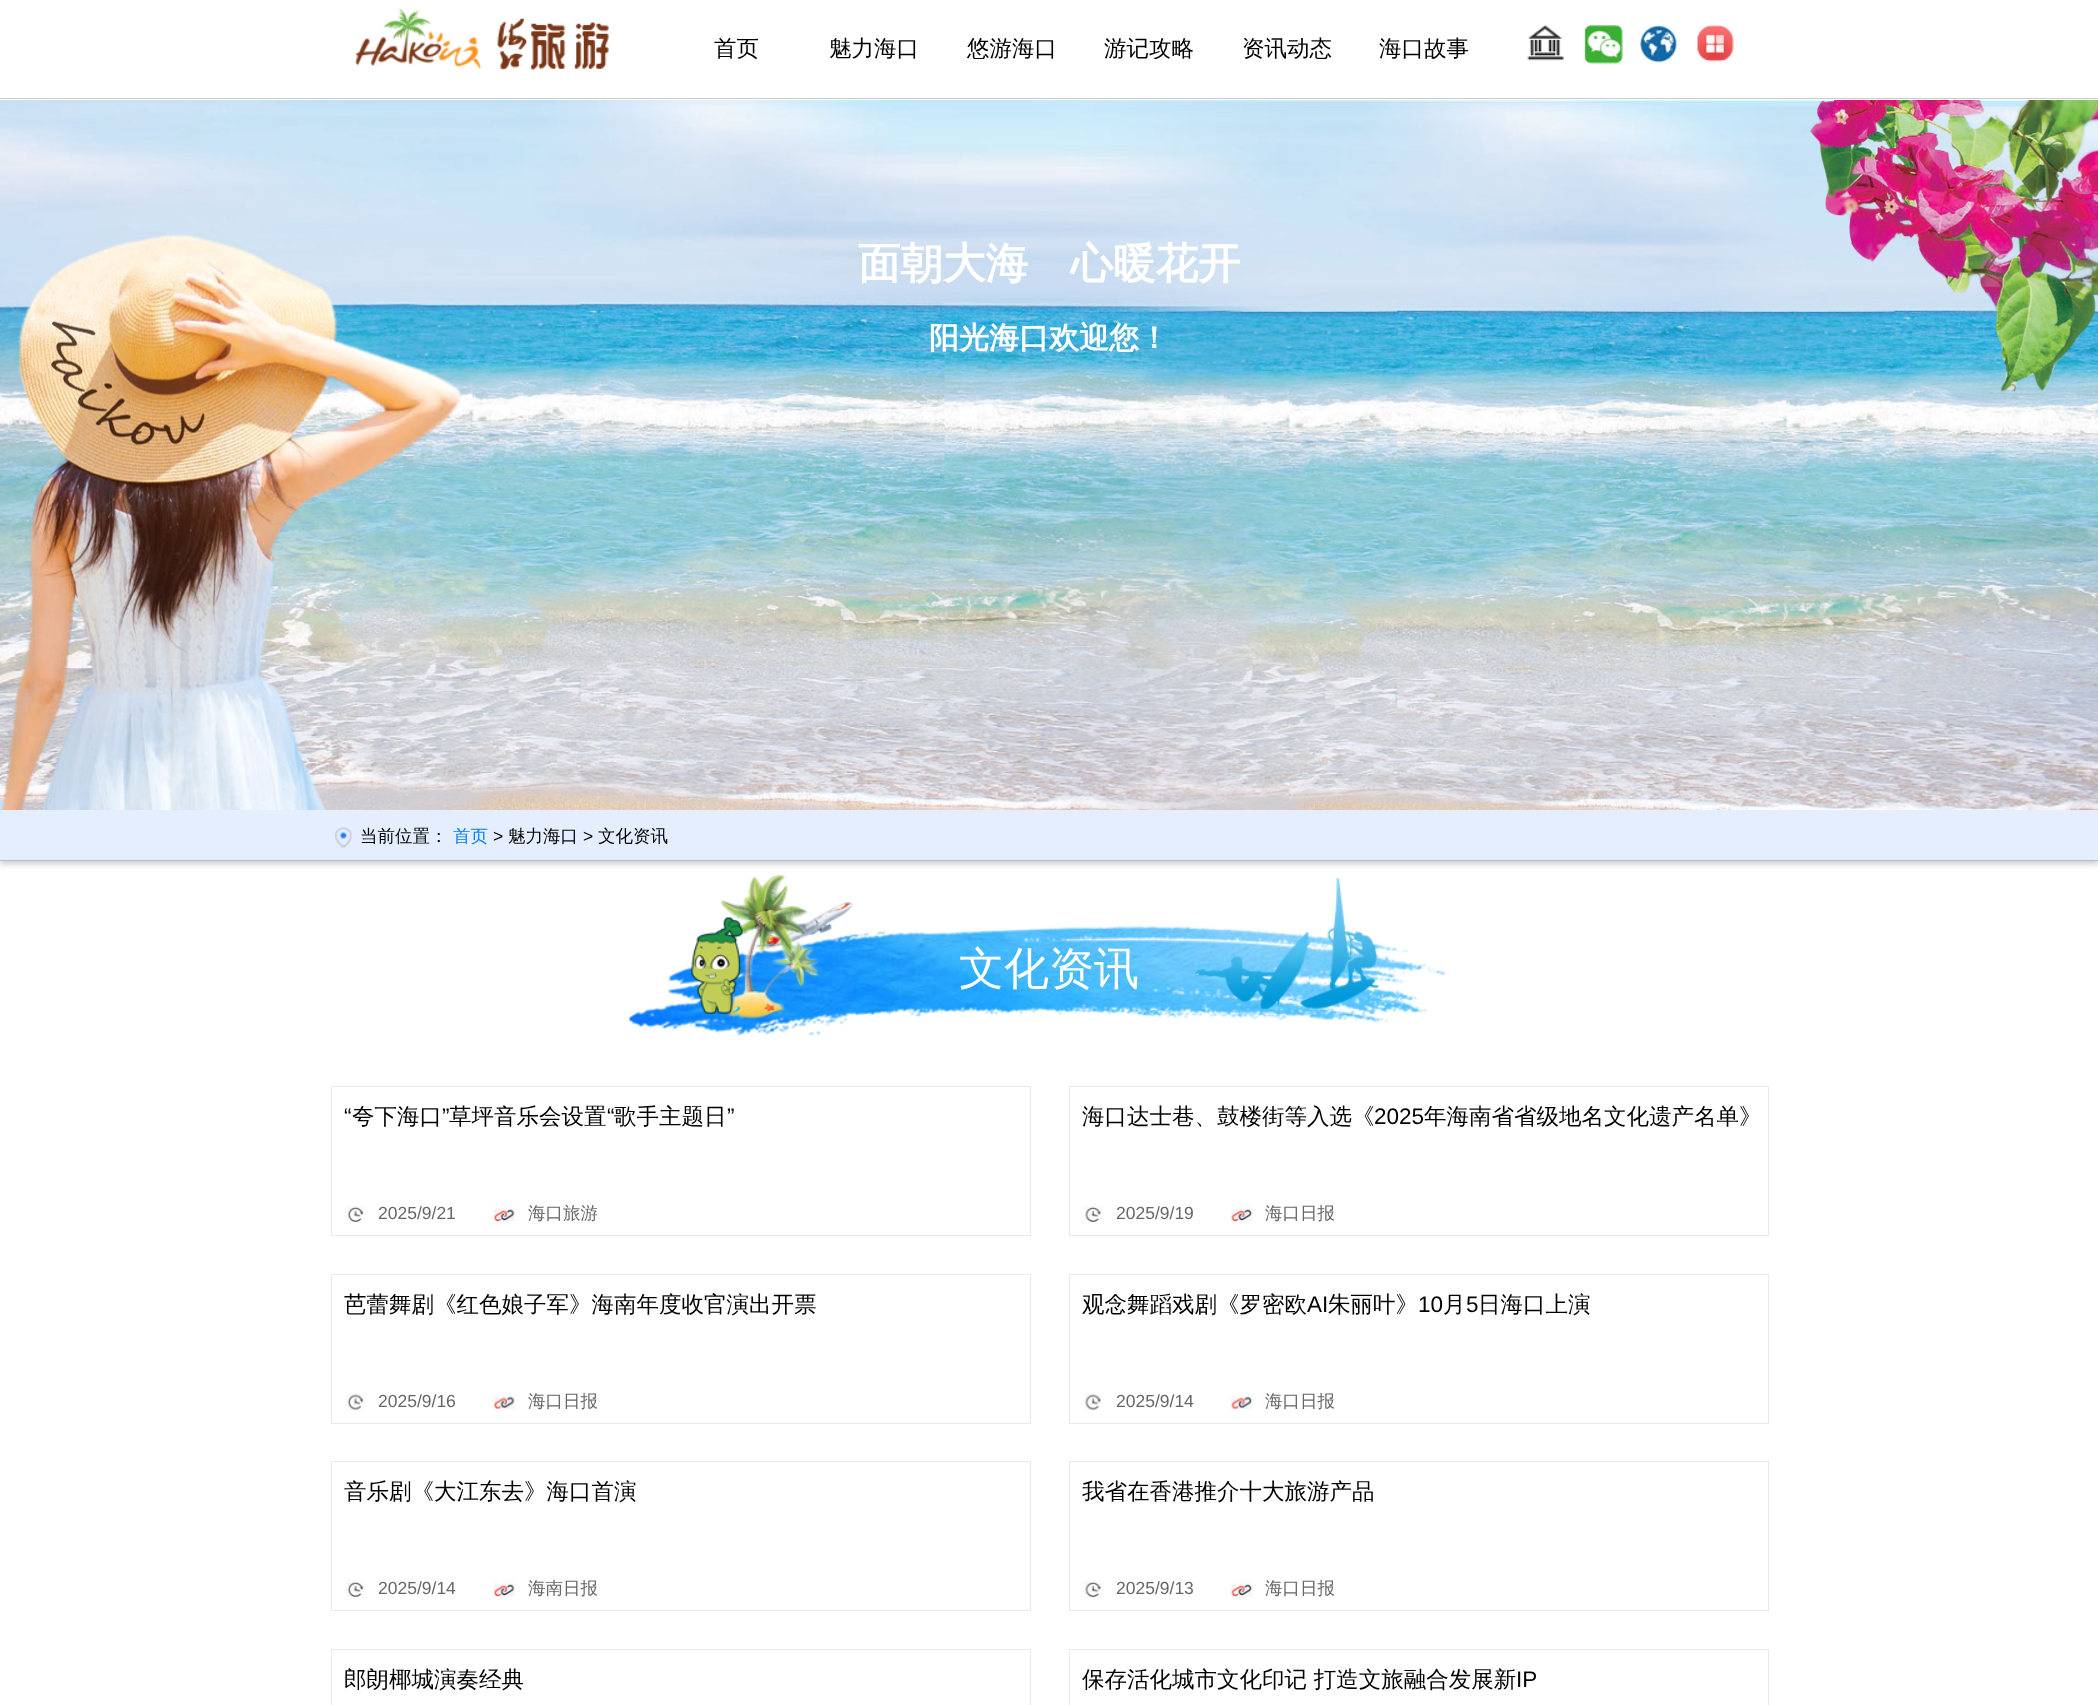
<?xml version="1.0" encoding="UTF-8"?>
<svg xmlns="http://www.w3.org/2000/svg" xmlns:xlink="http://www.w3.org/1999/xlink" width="2098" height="1705">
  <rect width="100%" height="100%" fill="#ffffff" />
  <rect y="98" width="2098" height="1" fill="#cccccc" />
  <image x="355" y="8" width="254" height="63" xlink:href="image1.png" />
  <image x="1527" y="25" width="37" height="36" xlink:href="image2.png" />
  <image x="1584" y="25" width="39" height="39" xlink:href="image3.png" />
  <image x="1640" y="25" width="37" height="38" xlink:href="image4.png" />
  <image x="1697" y="25" width="37" height="37" xlink:href="image5.png" />
  <rect y="813" width="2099" height="51" fill="#999999" fill-opacity="0.5" filter="blur(3px)" />
  <image x="0" y="100" width="2098" height="710" xlink:href="image6.png" />
  <image x="1" y="234" width="461" height="576" xlink:href="image7.png" />
  <image x="1810" y="100" width="288" height="292" xlink:href="image8.png" />
  <rect y="810" width="2098" height="50" fill="#e5eeff" />
  <rect y="860" width="2098" height="1" fill="#bcbcbc" />
  <image x="335" y="827" width="17" height="21" xlink:href="image9.png" />
  <image x="628" y="874" width="818" height="162" xlink:href="image10.png" />
  <rect x="331.5" y="1086.5" width="699" height="149" fill="none" stroke="#e9e9e9" />
  <image x="345" y="1205" width="21" height="18" xlink:href="image11.png" />
  <image x="493" y="1205" width="22" height="19" xlink:href="image12.png" />
  <rect x="1069.5" y="1086.5" width="699" height="149" fill="none" stroke="#e9e9e9" />
  <image x="1083" y="1205" width="21" height="18" xlink:href="image13.png" />
  <image x="1230" y="1205" width="23" height="19" xlink:href="image14.png" />
  <rect x="331.5" y="1274.5" width="699" height="149" fill="none" stroke="#e9e9e9" />
  <image x="346" y="1393" width="20" height="18" xlink:href="image15.png" />
  <image x="493" y="1393" width="22" height="19" xlink:href="image16.png" />
  <rect x="1069.5" y="1274.5" width="699" height="149" fill="none" stroke="#e9e9e9" />
  <image x="1084" y="1393" width="18" height="18" xlink:href="image17.png" />
  <image x="1230" y="1393" width="23" height="19" xlink:href="image18.png" />
  <rect x="331.5" y="1461.5" width="699" height="149" fill="none" stroke="#e9e9e9" />
  <image x="345" y="1580" width="21" height="18" xlink:href="image11.png" />
  <image x="493" y="1580" width="22" height="19" xlink:href="image12.png" />
  <rect x="1069.5" y="1461.5" width="699" height="149" fill="none" stroke="#e9e9e9" />
  <image x="1083" y="1580" width="21" height="18" xlink:href="image13.png" />
  <image x="1230" y="1580" width="23" height="19" xlink:href="image14.png" />
  <rect x="331.5" y="1649.5" width="699" height="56" fill="none" stroke="#e9e9e9" />
  <rect x="1069.5" y="1649.5" width="699" height="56" fill="none" stroke="#e9e9e9" />
  <text x="714" y="56" style="font-family: WenQuanYi Zen Hei; font-size: 22.5px; font-weight: 500; fill: #000000">首页</text>
  <text x="829" y="56" style="font-family: WenQuanYi Zen Hei; font-size: 22.5px; font-weight: 500; fill: #000000">魅力海口</text>
  <text x="967" y="56" style="font-family: WenQuanYi Zen Hei; font-size: 22.5px; font-weight: 500; fill: #000000">悠游海口</text>
  <text x="1104" y="56" style="font-family: WenQuanYi Zen Hei; font-size: 22.5px; font-weight: 500; fill: #000000">游记攻略</text>
  <text x="1242" y="56" style="font-family: WenQuanYi Zen Hei; font-size: 22.5px; font-weight: 500; fill: #000000">资讯动态</text>
  <text x="1379" y="56" style="font-family: WenQuanYi Zen Hei; font-size: 22.5px; font-weight: 500; fill: #000000">海口故事</text>
  <text x="858" y="278" style="font-family: WenQuanYi Zen Hei; font-size: 42.5px; font-weight: bold; fill: #ffffff">面朝大海　心暖花开</text>
  <text x="929" y="348" style="font-family: WenQuanYi Zen Hei; font-size: 30px; font-weight: bold; fill: #ffffff">阳光海口欢迎您！</text>
  <text x="360" y="842" style="font-family: WenQuanYi Zen Hei; font-size: 17.5px; font-weight: 500; fill: #000000">当前位置：</text>
  <text x="453" y="842" style="font-family: WenQuanYi Zen Hei; font-size: 17.5px; font-weight: 500; fill: #007bff">首页</text>
  <text x="493" y="842" style="font-family: Liberation Sans; font-size: 17.5px; fill: #000000">&gt;</text>
  <text x="508" y="842" style="font-family: WenQuanYi Zen Hei; font-size: 17.5px; font-weight: 500; fill: #000000">魅力海口</text>
  <text x="583" y="842" style="font-family: Liberation Sans; font-size: 17.5px; fill: #000000">&gt;</text>
  <text x="598" y="842" style="font-family: WenQuanYi Zen Hei; font-size: 17.5px; font-weight: 500; fill: #000000">文化资讯</text>
  <text x="959" y="984" style="font-family: WenQuanYi Zen Hei; font-size: 45px; font-weight: 500; fill: #ffffff">文化资讯</text>
  <text x="344" y="1124" style="font-family: Liberation Sans; font-size: 22.5px; fill: #000000">“</text>
  <text x="352" y="1124" style="font-family: WenQuanYi Zen Hei; font-size: 22.5px; font-weight: 500; fill: #000000">夸下海口</text>
  <text x="442" y="1124" style="font-family: Liberation Sans; font-size: 22.5px; fill: #000000">”</text>
  <text x="449" y="1124" style="font-family: WenQuanYi Zen Hei; font-size: 22.5px; font-weight: 500; fill: #000000">草坪音乐会设置</text>
  <text x="607" y="1124" style="font-family: Liberation Sans; font-size: 22.5px; fill: #000000">“</text>
  <text x="614" y="1124" style="font-family: WenQuanYi Zen Hei; font-size: 22.5px; font-weight: 500; fill: #000000">歌手主题日</text>
  <text x="727" y="1124" style="font-family: Liberation Sans; font-size: 22.5px; fill: #000000">”</text>
  <text x="378" y="1219" style="font-family: Liberation Sans; font-size: 17.5px; fill: #666666">2025/9/21</text>
  <text x="528" y="1219" style="font-family: WenQuanYi Zen Hei; font-size: 17.5px; font-weight: 500; fill: #666666">海口旅游</text>
  <text x="1082" y="1124" style="font-family: WenQuanYi Zen Hei; font-size: 22.5px; font-weight: 500; fill: #000000">海口达士巷、鼓楼街等入选《</text>
  <text x="1374" y="1124" style="font-family: Liberation Sans; font-size: 22.5px; fill: #000000">2025</text>
  <text x="1424" y="1124" style="font-family: WenQuanYi Zen Hei; font-size: 22.5px; font-weight: 500; fill: #000000">年海南省省级地名文化遗产名单》</text>
  <text x="1116" y="1219" style="font-family: Liberation Sans; font-size: 17.5px; fill: #666666">2025/9/19</text>
  <text x="1265" y="1219" style="font-family: WenQuanYi Zen Hei; font-size: 17.5px; font-weight: 500; fill: #666666">海口日报</text>
  <text x="344" y="1312" style="font-family: WenQuanYi Zen Hei; font-size: 22.5px; font-weight: 500; fill: #000000">芭蕾舞剧《红色娘子军》海南年度收官演出开票</text>
  <text x="378" y="1407" style="font-family: Liberation Sans; font-size: 17.5px; fill: #666666">2025/9/16</text>
  <text x="528" y="1407" style="font-family: WenQuanYi Zen Hei; font-size: 17.5px; font-weight: 500; fill: #666666">海口日报</text>
  <text x="1082" y="1312" style="font-family: WenQuanYi Zen Hei; font-size: 22.5px; font-weight: 500; fill: #000000">观念舞蹈戏剧《罗密欧</text>
  <text x="1307" y="1312" style="font-family: Liberation Sans; font-size: 22.5px; fill: #000000">AI</text>
  <text x="1328" y="1312" style="font-family: WenQuanYi Zen Hei; font-size: 22.5px; font-weight: 500; fill: #000000">朱丽叶》</text>
  <text x="1418" y="1312" style="font-family: Liberation Sans; font-size: 22.5px; fill: #000000">10</text>
  <text x="1443" y="1312" style="font-family: WenQuanYi Zen Hei; font-size: 22.5px; font-weight: 500; fill: #000000">月</text>
  <text x="1466" y="1312" style="font-family: Liberation Sans; font-size: 22.5px; fill: #000000">5</text>
  <text x="1478" y="1312" style="font-family: WenQuanYi Zen Hei; font-size: 22.5px; font-weight: 500; fill: #000000">日海口上演</text>
  <text x="1116" y="1407" style="font-family: Liberation Sans; font-size: 17.5px; fill: #666666">2025/9/14</text>
  <text x="1265" y="1407" style="font-family: WenQuanYi Zen Hei; font-size: 17.5px; font-weight: 500; fill: #666666">海口日报</text>
  <text x="344" y="1499" style="font-family: WenQuanYi Zen Hei; font-size: 22.5px; font-weight: 500; fill: #000000">音乐剧《大江东去》海口首演</text>
  <text x="378" y="1594" style="font-family: Liberation Sans; font-size: 17.5px; fill: #666666">2025/9/14</text>
  <text x="528" y="1594" style="font-family: WenQuanYi Zen Hei; font-size: 17.5px; font-weight: 500; fill: #666666">海南日报</text>
  <text x="1082" y="1499" style="font-family: WenQuanYi Zen Hei; font-size: 22.5px; font-weight: 500; fill: #000000">我省在香港推介十大旅游产品</text>
  <text x="1116" y="1594" style="font-family: Liberation Sans; font-size: 17.5px; fill: #666666">2025/9/13</text>
  <text x="1265" y="1594" style="font-family: WenQuanYi Zen Hei; font-size: 17.5px; font-weight: 500; fill: #666666">海口日报</text>
  <text x="344" y="1687" style="font-family: WenQuanYi Zen Hei; font-size: 22.5px; font-weight: 500; fill: #000000">郎朗椰城演奏经典</text>
  <text x="1082" y="1687" style="font-family: WenQuanYi Zen Hei; font-size: 22.5px; font-weight: 500; fill: #000000">保存活化城市文化印记 打造文旅融合发展新</text>
  <text x="1516" y="1687" style="font-family: Liberation Sans; font-size: 22.5px; fill: #000000">IP</text>
</svg>
